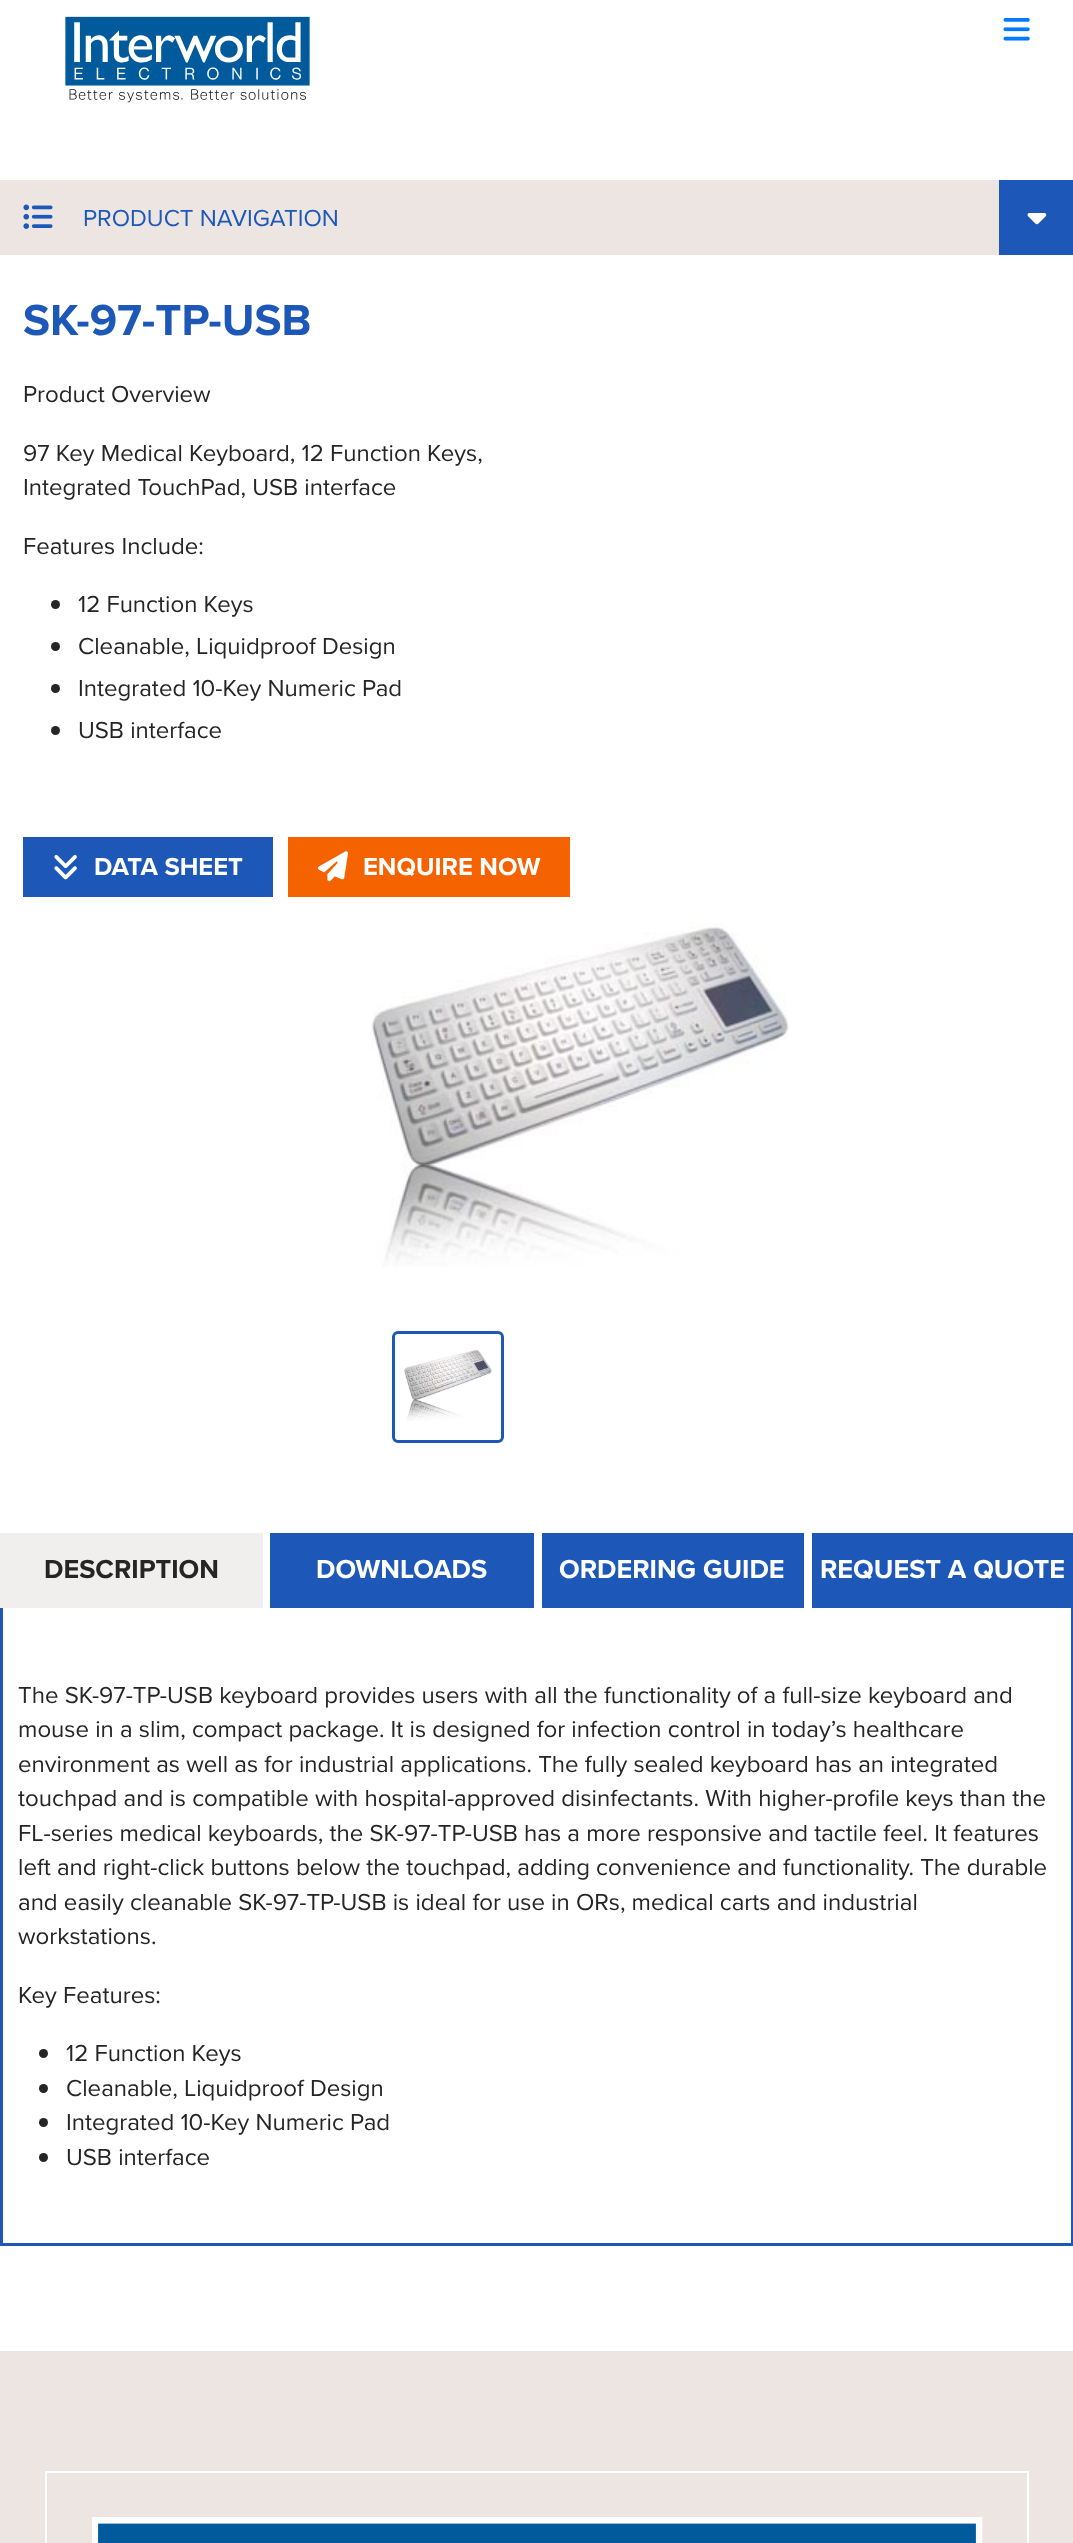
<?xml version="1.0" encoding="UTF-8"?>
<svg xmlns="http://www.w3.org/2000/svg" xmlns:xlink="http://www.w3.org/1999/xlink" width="1073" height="2543">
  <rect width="100%" height="100%" fill="#ffffff" />
  <image x="65" y="16" width="245" height="87" xlink:href="image1.png" />
  <image x="1003" y="18" width="27" height="23" xlink:href="image2.png" />
  <rect y="180" width="999" height="75" fill="#ece5e1" />
  <image x="23" y="204" width="30" height="25" xlink:href="image3.png" />
  <rect x="999" y="180" width="74" height="75" fill="#1d58b9" />
  <image x="1027" y="213" width="20" height="12" xlink:href="image4.png" />
  <circle cx="55.5" cy="604.5" r="4.5" fill="#252525" />
  <circle cx="55.5" cy="646.5" r="4.5" fill="#252525" />
  <circle cx="55.5" cy="688.5" r="4.5" fill="#252525" />
  <circle cx="55.5" cy="730.5" r="4.5" fill="#252525" />
  <rect x="23" y="837" width="250" height="60" fill="#1d58b9" />
  <image x="54" y="855" width="23" height="25" xlink:href="image5.png" />
  <rect x="288" y="837" width="282" height="60" fill="#f56300" />
  <image x="318" y="851" width="30" height="31" xlink:href="image6.png" />
  <image x="371" y="922" width="418" height="345" xlink:href="image7.png" />
  <rect x="393.5" y="1332.5" width="109" height="109" rx="4.5" fill="none" stroke="#1d58b9" stroke-width="3" />
  <image x="404" y="1349" width="88" height="72" xlink:href="image8.png" />
  <rect y="1533" width="263" height="75" fill="#f1efed" />
  <rect x="270" y="1533" width="264" height="75" fill="#1d58b9" />
  <rect x="542" y="1533" width="262" height="75" fill="#1d58b9" />
  <rect x="812" y="1533" width="261" height="75" fill="#1d58b9" />
  <rect x="1071" y="1608" width="2" height="638" fill="#1d58b9" />
  <rect y="2243" width="1073" height="3" fill="#1d58b9" />
  <rect y="1608" width="3" height="638" fill="#1d58b9" />
  <circle cx="43.5" cy="2053.5" r="4.5" fill="#252525" />
  <circle cx="43.5" cy="2088.5" r="4.5" fill="#252525" />
  <circle cx="43.5" cy="2122.5" r="4.5" fill="#252525" />
  <circle cx="43.5" cy="2157.5" r="4.5" fill="#252525" />
  <rect y="2351" width="1073" height="192" fill="#ece5e1" />
  <rect x="46" y="2472" width="982" height="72" fill="none" stroke="#ffffff" stroke-width="2" />
  <image x="92" y="2517" width="891" height="26" xlink:href="image9.png" />
  <text x="83" y="226" style="font-family: Proxima Nova; font-size: 24px; fill: #1d58b9">PRODUCT NAVIGATION</text>
  <text x="23" y="335" style="font-family: Proxima Nova; font-size: 45px; font-weight: bold; fill: #1d58b9">SK-97-TP-USB</text>
  <text x="23" y="402" style="font-family: Proxima Nova; font-size: 24px; fill: #252525">Product Overview</text>
  <text x="23" y="461" style="font-family: Proxima Nova; font-size: 24px; fill: #252525">97 Key Medical Keyboard, 12 Function Keys,</text>
  <text x="23" y="495" style="font-family: Proxima Nova; font-size: 24px; fill: #252525">Integrated TouchPad, USB interface</text>
  <text x="23" y="554" style="font-family: Proxima Nova; font-size: 24px; fill: #252525">Features Include:</text>
  <text x="78" y="612" style="font-family: Proxima Nova; font-size: 24px; fill: #252525">12 Function Keys</text>
  <text x="78" y="654" style="font-family: Proxima Nova; font-size: 24px; fill: #252525">Cleanable, Liquidproof Design</text>
  <text x="78" y="696" style="font-family: Proxima Nova; font-size: 24px; fill: #252525">Integrated 10-Key Numeric Pad</text>
  <text x="78" y="738" style="font-family: Proxima Nova; font-size: 24px; fill: #252525">USB interface</text>
  <text x="94" y="875" style="font-family: Proxima Nova; font-size: 25.5px; font-weight: bold; fill: #ffffff">DATA SHEET</text>
  <text x="363" y="875" style="font-family: Proxima Nova; font-size: 25.5px; font-weight: bold; fill: #ffffff">ENQUIRE NOW</text>
  <text x="44" y="1578" style="font-family: Proxima Nova; font-size: 27px; font-weight: bold; fill: #252525">DESCRIPTION</text>
  <text x="316" y="1578" style="font-family: Proxima Nova; font-size: 27px; font-weight: bold; fill: #ffffff">DOWNLOADS</text>
  <text x="559" y="1578" style="font-family: Proxima Nova; font-size: 27px; font-weight: bold; fill: #ffffff">ORDERING GUIDE</text>
  <text x="820" y="1578" style="font-family: Proxima Nova; font-size: 27px; font-weight: bold; fill: #ffffff">REQUEST A QUOTE</text>
  <text x="18" y="1703" style="font-family: Proxima Nova; font-size: 24px; fill: #252525">The SK-97-TP-USB keyboard provides users with all the functionality of a full-size keyboard and</text>
  <text x="18" y="1737" style="font-family: Proxima Nova; font-size: 24px; fill: #252525">mouse in a slim, compact package. It is designed for infection control in today’s healthcare</text>
  <text x="18" y="1772" style="font-family: Proxima Nova; font-size: 24px; fill: #252525">environment as well as for industrial applications. The fully sealed keyboard has an integrated</text>
  <text x="18" y="1806" style="font-family: Proxima Nova; font-size: 24px; fill: #252525">touchpad and is compatible with hospital-approved disinfectants. With higher-profile keys than the</text>
  <text x="18" y="1841" style="font-family: Proxima Nova; font-size: 24px; fill: #252525">FL-series medical keyboards, the SK-97-TP-USB has a more responsive and tactile feel. It features</text>
  <text x="18" y="1875" style="font-family: Proxima Nova; font-size: 24px; fill: #252525">left and right-click buttons below the touchpad, adding convenience and functionality. The durable</text>
  <text x="18" y="1910" style="font-family: Proxima Nova; font-size: 24px; fill: #252525">and easily cleanable SK-97-TP-USB is ideal for use in ORs, medical carts and industrial</text>
  <text x="18" y="1944" style="font-family: Proxima Nova; font-size: 24px; fill: #252525">workstations.</text>
  <text x="18" y="2003" style="font-family: Proxima Nova; font-size: 24px; fill: #252525">Key Features:</text>
  <text x="66" y="2061" style="font-family: Proxima Nova; font-size: 24px; fill: #252525">12 Function Keys</text>
  <text x="66" y="2096" style="font-family: Proxima Nova; font-size: 24px; fill: #252525">Cleanable, Liquidproof Design</text>
  <text x="66" y="2130" style="font-family: Proxima Nova; font-size: 24px; fill: #252525">Integrated 10-Key Numeric Pad</text>
  <text x="66" y="2165" style="font-family: Proxima Nova; font-size: 24px; fill: #252525">USB interface</text>
</svg>
